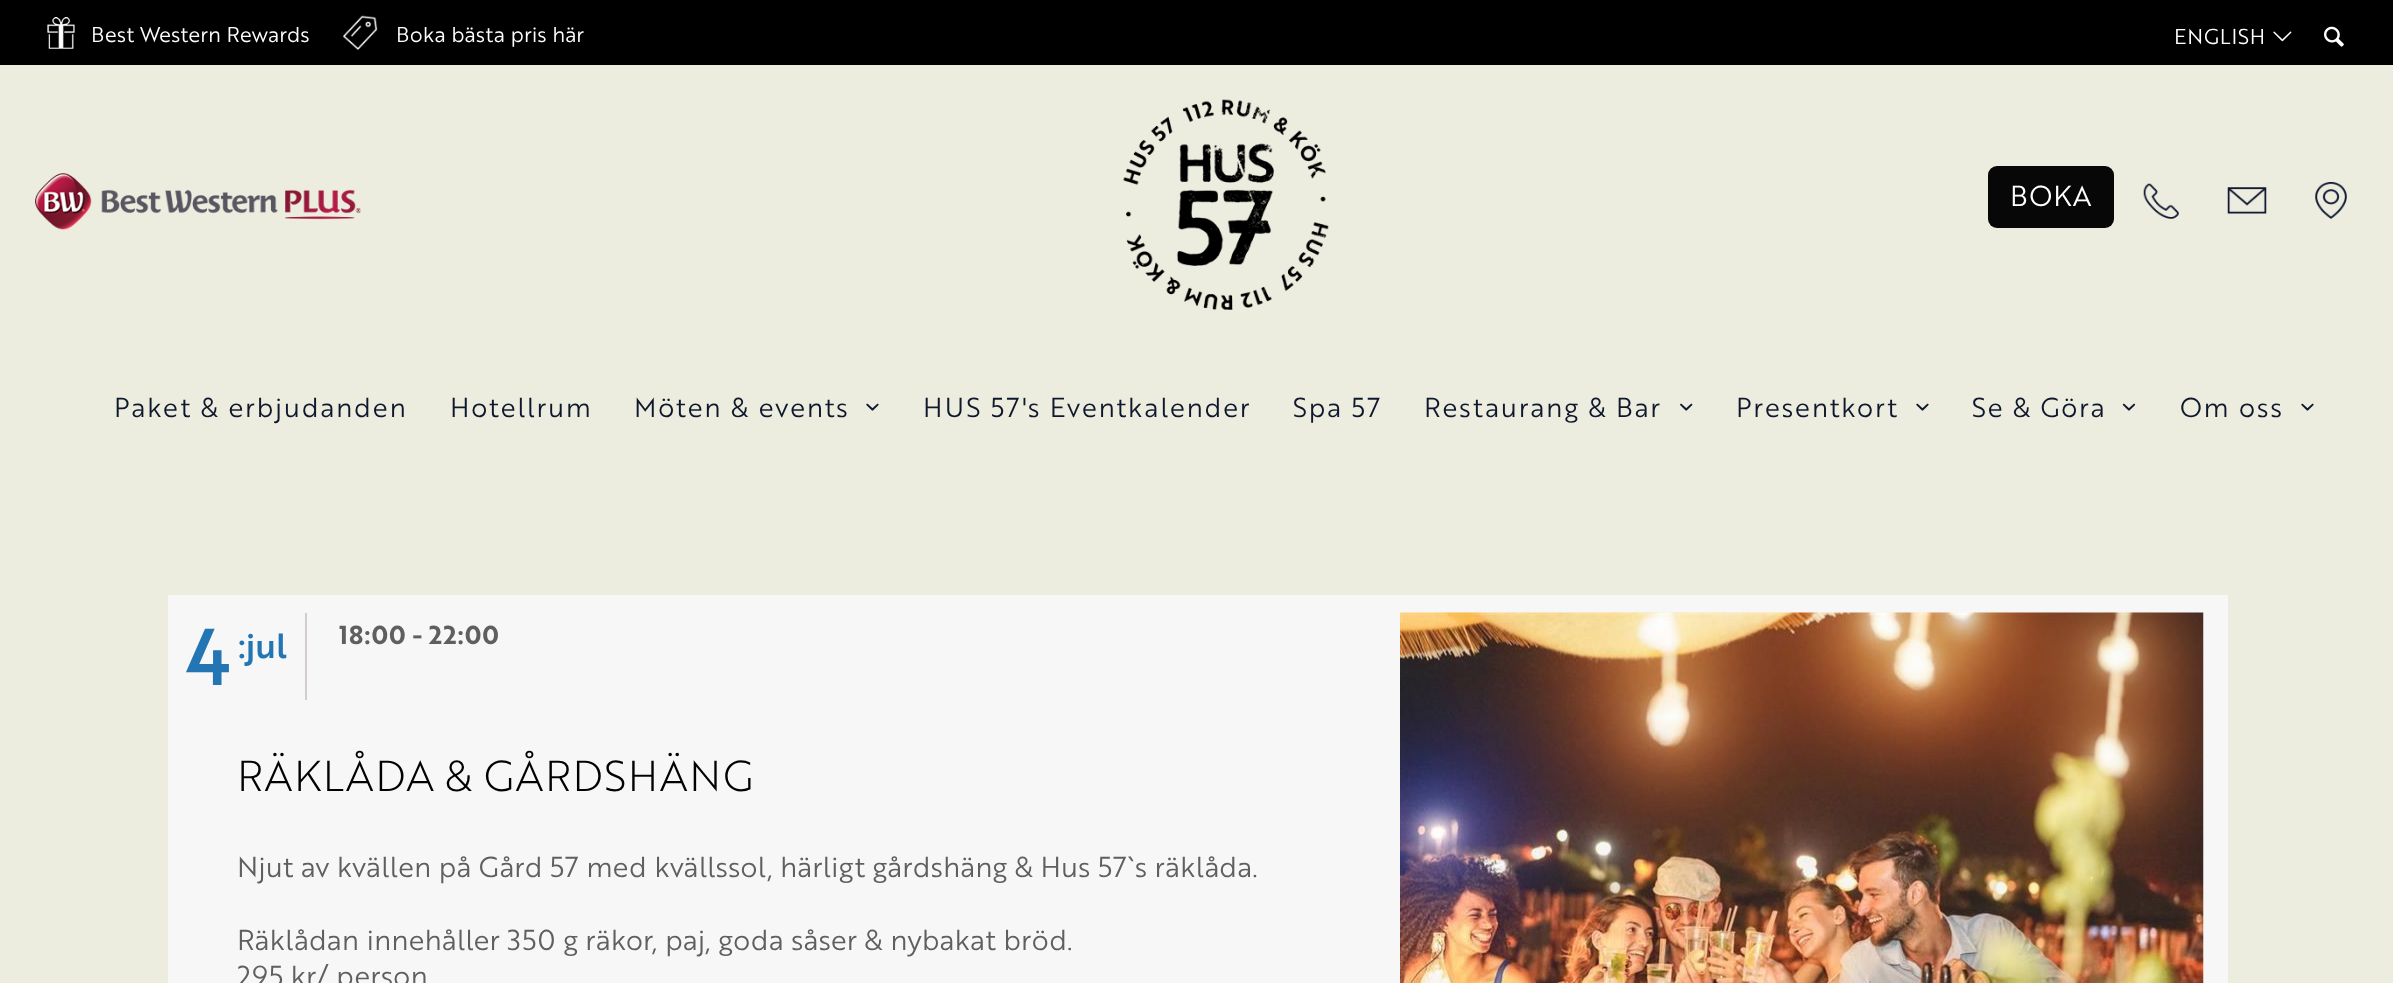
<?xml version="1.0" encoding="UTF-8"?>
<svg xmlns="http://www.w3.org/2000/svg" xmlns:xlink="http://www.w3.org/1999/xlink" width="2393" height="983">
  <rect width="100%" height="100%" fill="#eceddf" />
  <rect width="2393" height="65" fill="#000000" />
  <image x="47" y="17" width="28" height="32" xlink:href="image1.png" />
  <image x="343" y="15" width="35" height="35" xlink:href="image2.png" />
  <image x="2273" y="31" width="19" height="11" xlink:href="image3.png" />
  <image x="2324" y="26" width="20" height="21" xlink:href="image4.png" />
  <image x="35" y="173" width="326" height="57" xlink:href="image5.png" />
  <image x="1123" y="99" width="206" height="211" xlink:href="image6.png" />
  <rect x="1988" y="166" width="126" height="62" rx="9" fill="#070707" />
  <image x="2143" y="183" width="36" height="36" xlink:href="image7.png" />
  <image x="2227" y="187" width="40" height="27" xlink:href="image8.png" />
  <image x="2315" y="182" width="32" height="37" xlink:href="image9.png" />
  <image x="866" y="403" width="13" height="8" xlink:href="image10.png" />
  <image x="1680" y="403" width="13" height="8" xlink:href="image11.png" />
  <image x="1916" y="403" width="13" height="8" xlink:href="image10.png" />
  <image x="2122" y="403" width="14" height="8" xlink:href="image12.png" />
  <image x="2301" y="403" width="13" height="8" xlink:href="image10.png" />
  <rect x="168" y="595" width="2060" height="388" fill="#f7f7f7" />
  <rect x="305" y="613" width="2" height="87" fill="#d2cccc" />
  <image x="1400" y="612" width="804" height="371" xlink:href="image13.png" />
  <text x="91" y="42" style="font-family: 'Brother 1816'; font-size: 21px; fill: #ffffff">Best Western Rewards</text>
  <text x="396" y="42" style="font-family: 'Brother 1816'; font-size: 21px; fill: #ffffff">Boka bästa pris här</text>
  <text x="2174" y="44" style="font-family: 'Brother 1816'; font-size: 21px; fill: #ffffff">ENGLISH</text>
  <text x="2010" y="206" style="font-family: 'Brother 1816'; font-size: 28px; fill: #ffffff">BOKA</text>
  <text x="114" y="417" style="font-family: 'Brother 1816'; font-size: 26.6px; letter-spacing: 1.6px; fill: #0f172c">Paket &amp; erbjudanden</text>
  <text x="450" y="417" style="font-family: 'Brother 1816'; font-size: 26.6px; letter-spacing: 1.6px; fill: #0f172c">Hotellrum</text>
  <text x="634" y="417" style="font-family: 'Brother 1816'; font-size: 26.6px; letter-spacing: 1.6px; fill: #0f172c">Möten &amp; events</text>
  <text x="923" y="417" style="font-family: 'Brother 1816'; font-size: 26.6px; letter-spacing: 1.6px; fill: #0f172c">HUS 57's Eventkalender</text>
  <text x="1293" y="417" style="font-family: 'Brother 1816'; font-size: 26.6px; letter-spacing: 1.6px; fill: #0f172c">Spa 57</text>
  <text x="1424" y="417" style="font-family: 'Brother 1816'; font-size: 26.6px; letter-spacing: 1.6px; fill: #0f172c">Restaurang &amp; Bar</text>
  <text x="1736" y="417" style="font-family: 'Brother 1816'; font-size: 26.6px; letter-spacing: 1.6px; fill: #0f172c">Presentkort</text>
  <text x="1972" y="417" style="font-family: 'Brother 1816'; font-size: 26.6px; letter-spacing: 1.6px; fill: #0f172c">Se &amp; Göra</text>
  <text x="2180" y="417" style="font-family: 'Brother 1816'; font-size: 26.6px; letter-spacing: 1.6px; fill: #0f172c">Om oss</text>
  <text x="185" y="685" style="font-family: 'Brother 1816'; font-size: 78px; font-weight: 500; fill: #2475b4">4</text>
  <text x="238" y="658" style="font-family: 'Brother 1816'; font-size: 34px; font-weight: 500; fill: #2475b4">:jul</text>
  <text x="339" y="644" style="font-family: 'Brother 1816'; font-size: 25.25px; font-weight: bold; fill: #5f5f5f">18:00 - 22:00</text>
  <text x="237" y="791" style="font-family: 'Brother 1816'; font-size: 42px; font-weight: 300; fill: #000000">RÄKLÅDA &amp; GÅRDSHÄNG</text>
  <text x="237" y="877" style="font-family: 'Brother 1816'; font-size: 28px; fill: #5f5f5f">Njut av kvällen på Gård 57 med kvällssol, härligt gårdshäng &amp; Hus 57`s räklåda.</text>
  <text x="237" y="950" style="font-family: 'Brother 1816'; font-size: 28px; fill: #5f5f5f">Räklådan innehåller 350 g räkor, paj, goda såser &amp; nybakat bröd.</text>
  <text x="237" y="986" style="font-family: 'Brother 1816'; font-size: 28px; fill: #5f5f5f">295 kr/ person</text>
</svg>
